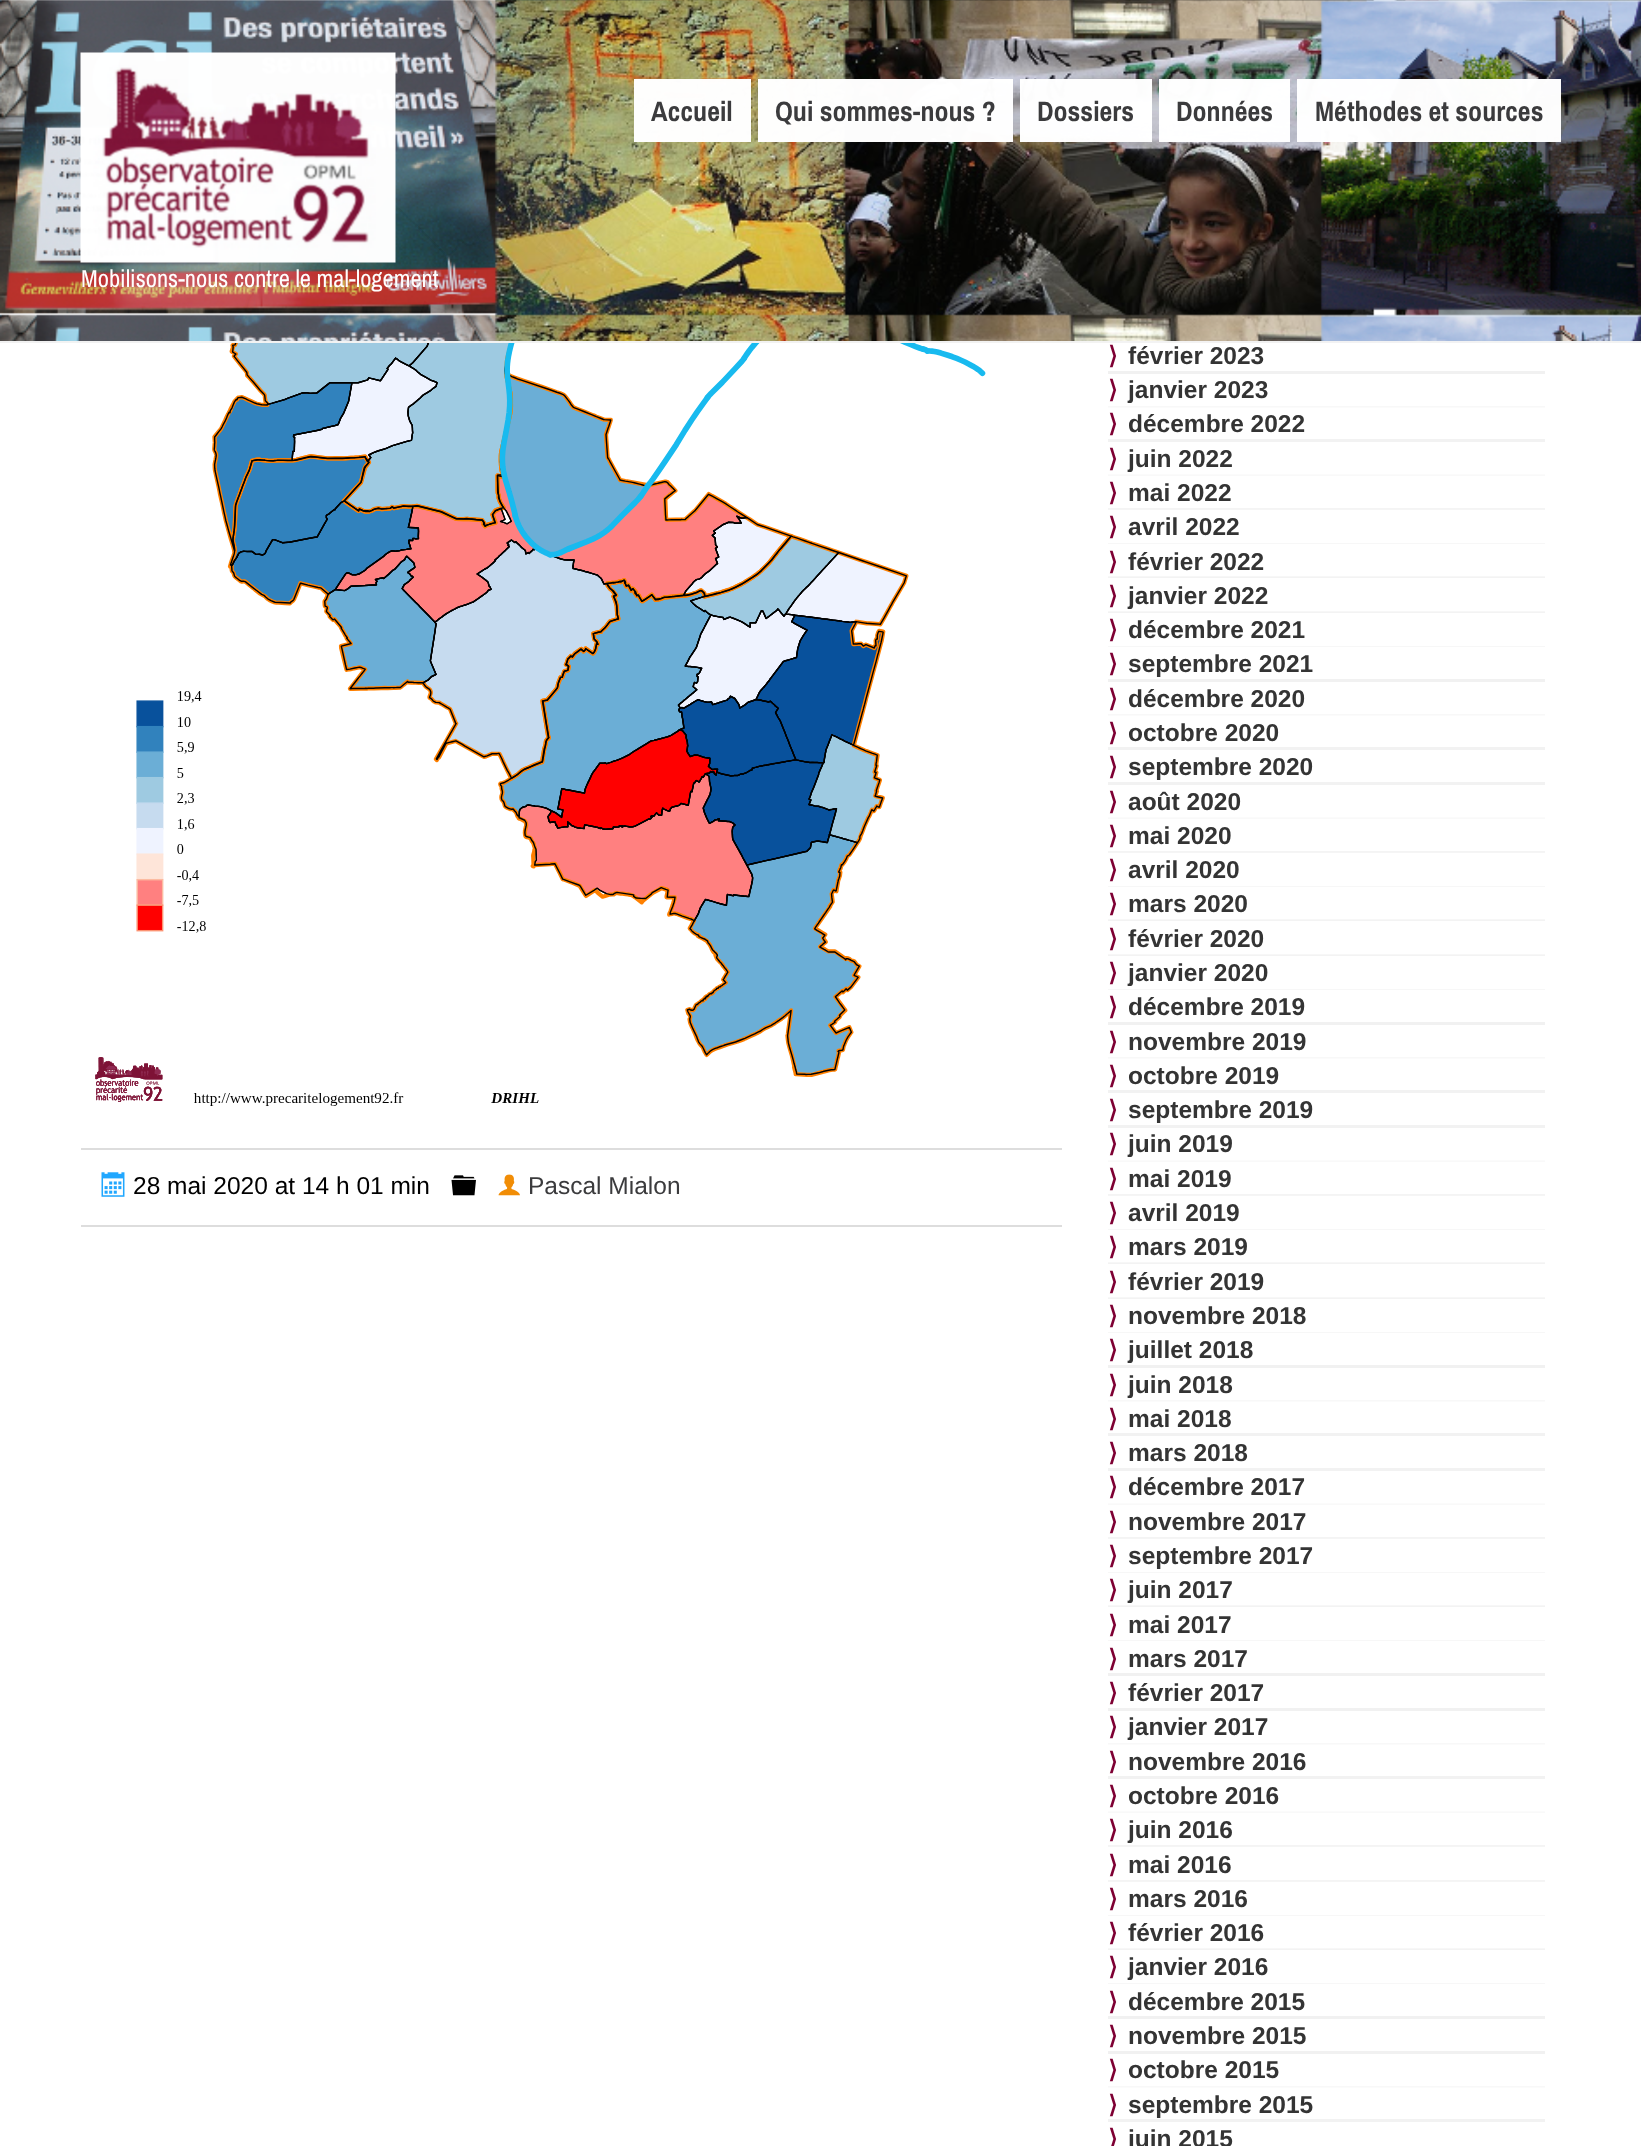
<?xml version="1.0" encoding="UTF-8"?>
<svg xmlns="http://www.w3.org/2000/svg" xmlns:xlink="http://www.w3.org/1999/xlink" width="1641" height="2146">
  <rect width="100%" height="100%" fill="#ffffff" />
  <image x="95" y="0" width="891" height="1106" xlink:href="image3.png" />
  <image x="1108" y="63" width="437" height="2" xlink:href="image7.png" />
  <image x="1108" y="131" width="437" height="2" xlink:href="image8.png" />
  <image x="1108" y="165" width="437" height="2" xlink:href="image9.png" />
  <image x="1108" y="200" width="437" height="2" xlink:href="image9.png" />
  <image x="1108" y="268" width="437" height="2" xlink:href="image10.png" />
  <image x="0" y="0" width="1641" height="343" xlink:href="image1.png" />
  <rect y="341" width="1641" height="2" fill="#f3f3f3" fill-opacity="0.99" />
  <rect x="634" y="79" width="117" height="63" fill="#ffffff" fill-opacity="0.99" />
  <rect x="758" y="79" width="255" height="63" fill="#ffffff" fill-opacity="0.99" />
  <rect x="1020" y="79" width="132" height="63" fill="#ffffff" fill-opacity="0.99" />
  <rect x="1159" y="79" width="131" height="63" fill="#ffffff" fill-opacity="0.99" />
  <rect x="1297" y="79" width="264" height="63" fill="#ffffff" fill-opacity="0.99" />
  <image x="80" y="52" width="316" height="211" xlink:href="image2.png" />
  <rect x="81" y="1148" width="981" height="2" fill="#dddddd" />
  <rect x="81" y="1225" width="981" height="2" fill="#dddddd" />
  <image x="101" y="1172" width="24" height="25" xlink:href="image4.png" />
  <image x="451" y="1175" width="25" height="21" xlink:href="image5.png" />
  <image x="498" y="1174" width="22" height="22" xlink:href="image6.png" />
  <rect x="1108" y="371" width="437" height="3" fill="#f1f1f1" />
  <image x="1108" y="406" width="437" height="2" xlink:href="image7.png" />
  <rect x="1108" y="439" width="437" height="3" fill="#f2f2f2" />
  <image x="1108" y="474" width="437" height="2" xlink:href="image8.png" />
  <image x="1108" y="508" width="437" height="2" xlink:href="image9.png" />
  <rect x="1108" y="543" width="437" height="1" fill="#f7f7f7" />
  <image x="1108" y="576" width="437" height="2" xlink:href="image10.png" />
  <image x="1108" y="611" width="437" height="2" xlink:href="image10.png" />
  <rect x="1108" y="646" width="437" height="1" fill="#f7f7f7" />
  <rect x="1108" y="679" width="437" height="3" fill="#f1f1f1" />
  <image x="1108" y="714" width="437" height="2" xlink:href="image7.png" />
  <rect x="1108" y="747" width="437" height="3" fill="#f2f2f2" />
  <rect x="1108" y="782" width="437" height="3" fill="#f2f2f2" />
  <image x="1108" y="817" width="437" height="2" xlink:href="image8.png" />
  <image x="1108" y="851" width="437" height="2" xlink:href="image9.png" />
  <rect x="1108" y="886" width="437" height="1" fill="#f7f7f7" />
  <image x="1108" y="919" width="437" height="2" xlink:href="image10.png" />
  <image x="1108" y="954" width="437" height="2" xlink:href="image10.png" />
  <rect x="1108" y="989" width="437" height="1" fill="#f7f7f7" />
  <rect x="1108" y="1022" width="437" height="3" fill="#f1f1f1" />
  <image x="1108" y="1057" width="437" height="2" xlink:href="image7.png" />
  <rect x="1108" y="1090" width="437" height="3" fill="#f2f2f2" />
  <rect x="1108" y="1125" width="437" height="3" fill="#f2f2f2" />
  <image x="1108" y="1160" width="437" height="2" xlink:href="image8.png" />
  <image x="1108" y="1194" width="437" height="2" xlink:href="image9.png" />
  <rect x="1108" y="1229" width="437" height="1" fill="#f7f7f7" />
  <image x="1108" y="1262" width="437" height="2" xlink:href="image10.png" />
  <image x="1108" y="1297" width="437" height="2" xlink:href="image10.png" />
  <rect x="1108" y="1332" width="437" height="1" fill="#f7f7f7" />
  <rect x="1108" y="1365" width="437" height="3" fill="#f1f1f1" />
  <image x="1108" y="1400" width="437" height="2" xlink:href="image7.png" />
  <rect x="1108" y="1433" width="437" height="3" fill="#f2f2f2" />
  <rect x="1108" y="1468" width="437" height="3" fill="#f2f2f2" />
  <image x="1108" y="1503" width="437" height="2" xlink:href="image8.png" />
  <image x="1108" y="1537" width="437" height="2" xlink:href="image9.png" />
  <rect x="1108" y="1572" width="437" height="1" fill="#f7f7f7" />
  <image x="1108" y="1605" width="437" height="2" xlink:href="image10.png" />
  <rect x="1108" y="1640" width="437" height="1" fill="#f7f7f7" />
  <rect x="1108" y="1673" width="437" height="3" fill="#f1f1f1" />
  <rect x="1108" y="1708" width="437" height="3" fill="#f1f1f1" />
  <image x="1108" y="1743" width="437" height="2" xlink:href="image7.png" />
  <rect x="1108" y="1776" width="437" height="3" fill="#f2f2f2" />
  <image x="1108" y="1811" width="437" height="2" xlink:href="image8.png" />
  <image x="1108" y="1845" width="437" height="2" xlink:href="image9.png" />
  <image x="1108" y="1880" width="437" height="2" xlink:href="image9.png" />
  <rect x="1108" y="1915" width="437" height="1" fill="#f7f7f7" />
  <image x="1108" y="1948" width="437" height="2" xlink:href="image10.png" />
  <rect x="1108" y="1983" width="437" height="1" fill="#f7f7f7" />
  <rect x="1108" y="2016" width="437" height="3" fill="#f1f1f1" />
  <rect x="1108" y="2051" width="437" height="3" fill="#f1f1f1" />
  <image x="1108" y="2086" width="437" height="2" xlink:href="image7.png" />
  <rect x="1108" y="2119" width="437" height="3" fill="#f2f2f2" />
  <text x="651" y="121" style="font-family: Archivo Narrow; font-size: 28px; font-weight: bold; fill: #3b3b3d">Accueil</text>
  <text x="775" y="121" style="font-family: Archivo Narrow; font-size: 28px; font-weight: bold; fill: #3b3b3d">Qui sommes-nous ?</text>
  <text x="1037" y="121" style="font-family: Archivo Narrow; font-size: 28px; font-weight: bold; fill: #3b3b3d">Dossiers</text>
  <text x="1176" y="121" style="font-family: Archivo Narrow; font-size: 28px; font-weight: bold; fill: #3b3b3d">Données</text>
  <text x="1315" y="121" style="font-family: Archivo Narrow; font-size: 28px; font-weight: bold; fill: #3b3b3d">Méthodes et sources</text>
  <text x="81" y="287" style="font-family: Archivo Narrow; font-size: 24.5px; fill: #fefdfd">Mobilisons-nous contre le mal-logement</text>
  <text x="133" y="1194" style="font-family: Arimo; font-size: 24.5px; fill: #000000">28 mai 2020 at 14 h 01 min</text>
  <text x="528" y="1194" style="font-family: Arimo; font-size: 24.5px; fill: #3b3b3d">Pascal Mialon</text>
  <text x="1108" y="364" style="font-family: DejaVu Sans; font-size: 24.5px; font-weight: bold; fill: #7e0033">⟩</text>
  <text x="1128" y="364" style="font-family: Arimo; font-size: 24.5px; font-weight: bold; fill: #343434">février 2023</text>
  <text x="1108" y="398" style="font-family: DejaVu Sans; font-size: 24.5px; font-weight: bold; fill: #7e0033">⟩</text>
  <text x="1128" y="398" style="font-family: Arimo; font-size: 24.5px; font-weight: bold; fill: #343434">janvier 2023</text>
  <text x="1108" y="432" style="font-family: DejaVu Sans; font-size: 24.5px; font-weight: bold; fill: #7e0033">⟩</text>
  <text x="1128" y="432" style="font-family: Arimo; font-size: 24.5px; font-weight: bold; fill: #343434">décembre 2022</text>
  <text x="1108" y="467" style="font-family: DejaVu Sans; font-size: 24.5px; font-weight: bold; fill: #7e0033">⟩</text>
  <text x="1128" y="467" style="font-family: Arimo; font-size: 24.5px; font-weight: bold; fill: #343434">juin 2022</text>
  <text x="1108" y="501" style="font-family: DejaVu Sans; font-size: 24.5px; font-weight: bold; fill: #7e0033">⟩</text>
  <text x="1128" y="501" style="font-family: Arimo; font-size: 24.5px; font-weight: bold; fill: #343434">mai 2022</text>
  <text x="1108" y="535" style="font-family: DejaVu Sans; font-size: 24.5px; font-weight: bold; fill: #7e0033">⟩</text>
  <text x="1128" y="535" style="font-family: Arimo; font-size: 24.5px; font-weight: bold; fill: #343434">avril 2022</text>
  <text x="1108" y="570" style="font-family: DejaVu Sans; font-size: 24.5px; font-weight: bold; fill: #7e0033">⟩</text>
  <text x="1128" y="570" style="font-family: Arimo; font-size: 24.5px; font-weight: bold; fill: #343434">février 2022</text>
  <text x="1108" y="604" style="font-family: DejaVu Sans; font-size: 24.5px; font-weight: bold; fill: #7e0033">⟩</text>
  <text x="1128" y="604" style="font-family: Arimo; font-size: 24.5px; font-weight: bold; fill: #343434">janvier 2022</text>
  <text x="1108" y="638" style="font-family: DejaVu Sans; font-size: 24.5px; font-weight: bold; fill: #7e0033">⟩</text>
  <text x="1128" y="638" style="font-family: Arimo; font-size: 24.5px; font-weight: bold; fill: #343434">décembre 2021</text>
  <text x="1108" y="672" style="font-family: DejaVu Sans; font-size: 24.5px; font-weight: bold; fill: #7e0033">⟩</text>
  <text x="1128" y="672" style="font-family: Arimo; font-size: 24.5px; font-weight: bold; fill: #343434">septembre 2021</text>
  <text x="1108" y="707" style="font-family: DejaVu Sans; font-size: 24.5px; font-weight: bold; fill: #7e0033">⟩</text>
  <text x="1128" y="707" style="font-family: Arimo; font-size: 24.5px; font-weight: bold; fill: #343434">décembre 2020</text>
  <text x="1108" y="741" style="font-family: DejaVu Sans; font-size: 24.5px; font-weight: bold; fill: #7e0033">⟩</text>
  <text x="1128" y="741" style="font-family: Arimo; font-size: 24.5px; font-weight: bold; fill: #343434">octobre 2020</text>
  <text x="1108" y="775" style="font-family: DejaVu Sans; font-size: 24.5px; font-weight: bold; fill: #7e0033">⟩</text>
  <text x="1128" y="775" style="font-family: Arimo; font-size: 24.5px; font-weight: bold; fill: #343434">septembre 2020</text>
  <text x="1108" y="810" style="font-family: DejaVu Sans; font-size: 24.5px; font-weight: bold; fill: #7e0033">⟩</text>
  <text x="1128" y="810" style="font-family: Arimo; font-size: 24.5px; font-weight: bold; fill: #343434">août 2020</text>
  <text x="1108" y="844" style="font-family: DejaVu Sans; font-size: 24.5px; font-weight: bold; fill: #7e0033">⟩</text>
  <text x="1128" y="844" style="font-family: Arimo; font-size: 24.5px; font-weight: bold; fill: #343434">mai 2020</text>
  <text x="1108" y="878" style="font-family: DejaVu Sans; font-size: 24.5px; font-weight: bold; fill: #7e0033">⟩</text>
  <text x="1128" y="878" style="font-family: Arimo; font-size: 24.5px; font-weight: bold; fill: #343434">avril 2020</text>
  <text x="1108" y="912" style="font-family: DejaVu Sans; font-size: 24.5px; font-weight: bold; fill: #7e0033">⟩</text>
  <text x="1128" y="912" style="font-family: Arimo; font-size: 24.5px; font-weight: bold; fill: #343434">mars 2020</text>
  <text x="1108" y="947" style="font-family: DejaVu Sans; font-size: 24.5px; font-weight: bold; fill: #7e0033">⟩</text>
  <text x="1128" y="947" style="font-family: Arimo; font-size: 24.5px; font-weight: bold; fill: #343434">février 2020</text>
  <text x="1108" y="981" style="font-family: DejaVu Sans; font-size: 24.5px; font-weight: bold; fill: #7e0033">⟩</text>
  <text x="1128" y="981" style="font-family: Arimo; font-size: 24.5px; font-weight: bold; fill: #343434">janvier 2020</text>
  <text x="1108" y="1015" style="font-family: DejaVu Sans; font-size: 24.5px; font-weight: bold; fill: #7e0033">⟩</text>
  <text x="1128" y="1015" style="font-family: Arimo; font-size: 24.5px; font-weight: bold; fill: #343434">décembre 2019</text>
  <text x="1108" y="1050" style="font-family: DejaVu Sans; font-size: 24.5px; font-weight: bold; fill: #7e0033">⟩</text>
  <text x="1128" y="1050" style="font-family: Arimo; font-size: 24.5px; font-weight: bold; fill: #343434">novembre 2019</text>
  <text x="1108" y="1084" style="font-family: DejaVu Sans; font-size: 24.5px; font-weight: bold; fill: #7e0033">⟩</text>
  <text x="1128" y="1084" style="font-family: Arimo; font-size: 24.5px; font-weight: bold; fill: #343434">octobre 2019</text>
  <text x="1108" y="1118" style="font-family: DejaVu Sans; font-size: 24.5px; font-weight: bold; fill: #7e0033">⟩</text>
  <text x="1128" y="1118" style="font-family: Arimo; font-size: 24.5px; font-weight: bold; fill: #343434">septembre 2019</text>
  <text x="1108" y="1152" style="font-family: DejaVu Sans; font-size: 24.5px; font-weight: bold; fill: #7e0033">⟩</text>
  <text x="1128" y="1152" style="font-family: Arimo; font-size: 24.5px; font-weight: bold; fill: #343434">juin 2019</text>
  <text x="1108" y="1187" style="font-family: DejaVu Sans; font-size: 24.5px; font-weight: bold; fill: #7e0033">⟩</text>
  <text x="1128" y="1187" style="font-family: Arimo; font-size: 24.5px; font-weight: bold; fill: #343434">mai 2019</text>
  <text x="1108" y="1221" style="font-family: DejaVu Sans; font-size: 24.5px; font-weight: bold; fill: #7e0033">⟩</text>
  <text x="1128" y="1221" style="font-family: Arimo; font-size: 24.5px; font-weight: bold; fill: #343434">avril 2019</text>
  <text x="1108" y="1255" style="font-family: DejaVu Sans; font-size: 24.5px; font-weight: bold; fill: #7e0033">⟩</text>
  <text x="1128" y="1255" style="font-family: Arimo; font-size: 24.5px; font-weight: bold; fill: #343434">mars 2019</text>
  <text x="1108" y="1290" style="font-family: DejaVu Sans; font-size: 24.5px; font-weight: bold; fill: #7e0033">⟩</text>
  <text x="1128" y="1290" style="font-family: Arimo; font-size: 24.5px; font-weight: bold; fill: #343434">février 2019</text>
  <text x="1108" y="1324" style="font-family: DejaVu Sans; font-size: 24.5px; font-weight: bold; fill: #7e0033">⟩</text>
  <text x="1128" y="1324" style="font-family: Arimo; font-size: 24.5px; font-weight: bold; fill: #343434">novembre 2018</text>
  <text x="1108" y="1358" style="font-family: DejaVu Sans; font-size: 24.5px; font-weight: bold; fill: #7e0033">⟩</text>
  <text x="1128" y="1358" style="font-family: Arimo; font-size: 24.5px; font-weight: bold; fill: #343434">juillet 2018</text>
  <text x="1108" y="1393" style="font-family: DejaVu Sans; font-size: 24.5px; font-weight: bold; fill: #7e0033">⟩</text>
  <text x="1128" y="1393" style="font-family: Arimo; font-size: 24.5px; font-weight: bold; fill: #343434">juin 2018</text>
  <text x="1108" y="1427" style="font-family: DejaVu Sans; font-size: 24.5px; font-weight: bold; fill: #7e0033">⟩</text>
  <text x="1128" y="1427" style="font-family: Arimo; font-size: 24.5px; font-weight: bold; fill: #343434">mai 2018</text>
  <text x="1108" y="1461" style="font-family: DejaVu Sans; font-size: 24.5px; font-weight: bold; fill: #7e0033">⟩</text>
  <text x="1128" y="1461" style="font-family: Arimo; font-size: 24.5px; font-weight: bold; fill: #343434">mars 2018</text>
  <text x="1108" y="1495" style="font-family: DejaVu Sans; font-size: 24.5px; font-weight: bold; fill: #7e0033">⟩</text>
  <text x="1128" y="1495" style="font-family: Arimo; font-size: 24.5px; font-weight: bold; fill: #343434">décembre 2017</text>
  <text x="1108" y="1530" style="font-family: DejaVu Sans; font-size: 24.5px; font-weight: bold; fill: #7e0033">⟩</text>
  <text x="1128" y="1530" style="font-family: Arimo; font-size: 24.5px; font-weight: bold; fill: #343434">novembre 2017</text>
  <text x="1108" y="1564" style="font-family: DejaVu Sans; font-size: 24.5px; font-weight: bold; fill: #7e0033">⟩</text>
  <text x="1128" y="1564" style="font-family: Arimo; font-size: 24.5px; font-weight: bold; fill: #343434">septembre 2017</text>
  <text x="1108" y="1598" style="font-family: DejaVu Sans; font-size: 24.5px; font-weight: bold; fill: #7e0033">⟩</text>
  <text x="1128" y="1598" style="font-family: Arimo; font-size: 24.5px; font-weight: bold; fill: #343434">juin 2017</text>
  <text x="1108" y="1633" style="font-family: DejaVu Sans; font-size: 24.5px; font-weight: bold; fill: #7e0033">⟩</text>
  <text x="1128" y="1633" style="font-family: Arimo; font-size: 24.5px; font-weight: bold; fill: #343434">mai 2017</text>
  <text x="1108" y="1667" style="font-family: DejaVu Sans; font-size: 24.5px; font-weight: bold; fill: #7e0033">⟩</text>
  <text x="1128" y="1667" style="font-family: Arimo; font-size: 24.5px; font-weight: bold; fill: #343434">mars 2017</text>
  <text x="1108" y="1701" style="font-family: DejaVu Sans; font-size: 24.5px; font-weight: bold; fill: #7e0033">⟩</text>
  <text x="1128" y="1701" style="font-family: Arimo; font-size: 24.5px; font-weight: bold; fill: #343434">février 2017</text>
  <text x="1108" y="1735" style="font-family: DejaVu Sans; font-size: 24.5px; font-weight: bold; fill: #7e0033">⟩</text>
  <text x="1128" y="1735" style="font-family: Arimo; font-size: 24.5px; font-weight: bold; fill: #343434">janvier 2017</text>
  <text x="1108" y="1770" style="font-family: DejaVu Sans; font-size: 24.5px; font-weight: bold; fill: #7e0033">⟩</text>
  <text x="1128" y="1770" style="font-family: Arimo; font-size: 24.5px; font-weight: bold; fill: #343434">novembre 2016</text>
  <text x="1108" y="1804" style="font-family: DejaVu Sans; font-size: 24.5px; font-weight: bold; fill: #7e0033">⟩</text>
  <text x="1128" y="1804" style="font-family: Arimo; font-size: 24.5px; font-weight: bold; fill: #343434">octobre 2016</text>
  <text x="1108" y="1838" style="font-family: DejaVu Sans; font-size: 24.5px; font-weight: bold; fill: #7e0033">⟩</text>
  <text x="1128" y="1838" style="font-family: Arimo; font-size: 24.5px; font-weight: bold; fill: #343434">juin 2016</text>
  <text x="1108" y="1873" style="font-family: DejaVu Sans; font-size: 24.5px; font-weight: bold; fill: #7e0033">⟩</text>
  <text x="1128" y="1873" style="font-family: Arimo; font-size: 24.5px; font-weight: bold; fill: #343434">mai 2016</text>
  <text x="1108" y="1907" style="font-family: DejaVu Sans; font-size: 24.5px; font-weight: bold; fill: #7e0033">⟩</text>
  <text x="1128" y="1907" style="font-family: Arimo; font-size: 24.5px; font-weight: bold; fill: #343434">mars 2016</text>
  <text x="1108" y="1941" style="font-family: DejaVu Sans; font-size: 24.5px; font-weight: bold; fill: #7e0033">⟩</text>
  <text x="1128" y="1941" style="font-family: Arimo; font-size: 24.5px; font-weight: bold; fill: #343434">février 2016</text>
  <text x="1108" y="1975" style="font-family: DejaVu Sans; font-size: 24.5px; font-weight: bold; fill: #7e0033">⟩</text>
  <text x="1128" y="1975" style="font-family: Arimo; font-size: 24.5px; font-weight: bold; fill: #343434">janvier 2016</text>
  <text x="1108" y="2010" style="font-family: DejaVu Sans; font-size: 24.5px; font-weight: bold; fill: #7e0033">⟩</text>
  <text x="1128" y="2010" style="font-family: Arimo; font-size: 24.5px; font-weight: bold; fill: #343434">décembre 2015</text>
  <text x="1108" y="2044" style="font-family: DejaVu Sans; font-size: 24.5px; font-weight: bold; fill: #7e0033">⟩</text>
  <text x="1128" y="2044" style="font-family: Arimo; font-size: 24.5px; font-weight: bold; fill: #343434">novembre 2015</text>
  <text x="1108" y="2078" style="font-family: DejaVu Sans; font-size: 24.5px; font-weight: bold; fill: #7e0033">⟩</text>
  <text x="1128" y="2078" style="font-family: Arimo; font-size: 24.5px; font-weight: bold; fill: #343434">octobre 2015</text>
  <text x="1108" y="2113" style="font-family: DejaVu Sans; font-size: 24.5px; font-weight: bold; fill: #7e0033">⟩</text>
  <text x="1128" y="2113" style="font-family: Arimo; font-size: 24.5px; font-weight: bold; fill: #343434">septembre 2015</text>
  <text x="1108" y="2147" style="font-family: DejaVu Sans; font-size: 24.5px; font-weight: bold; fill: #7e0033">⟩</text>
  <text x="1128" y="2147" style="font-family: Arimo; font-size: 24.5px; font-weight: bold; fill: #343434">juin 2015</text>
</svg>
